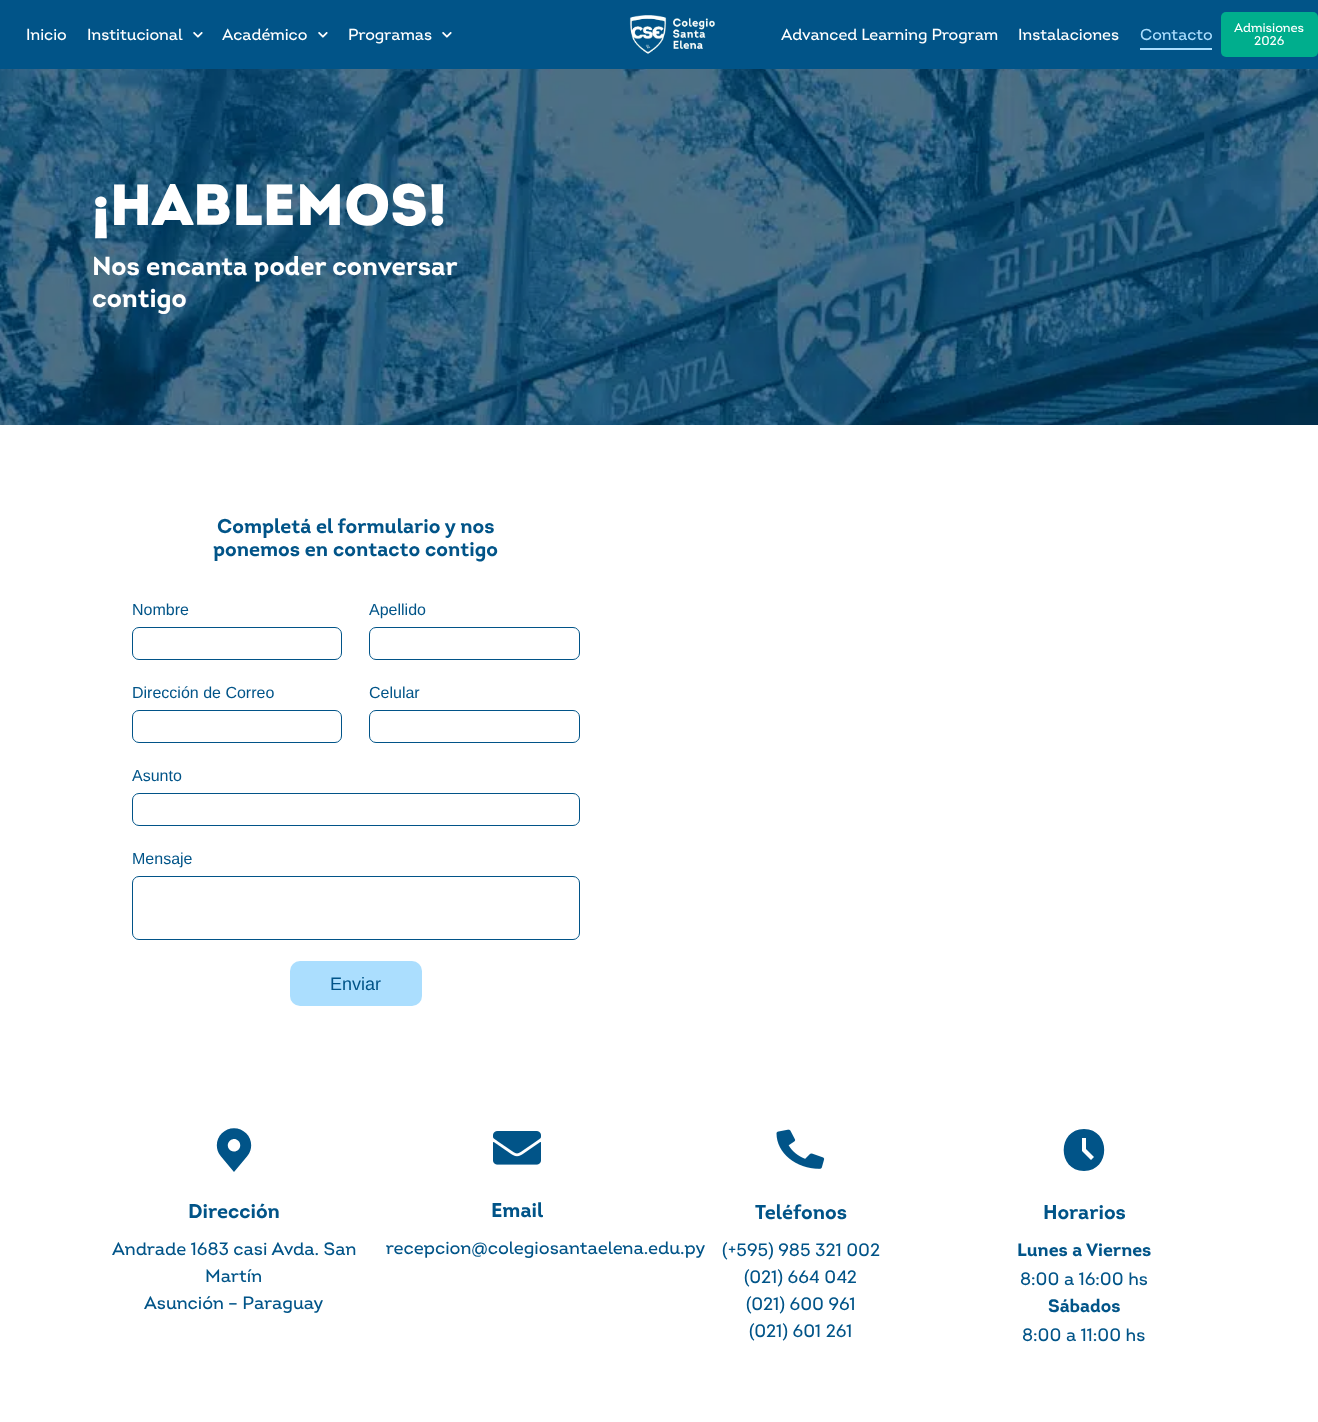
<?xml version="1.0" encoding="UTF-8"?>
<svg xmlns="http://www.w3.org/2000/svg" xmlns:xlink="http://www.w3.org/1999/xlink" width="1318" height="1422">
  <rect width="100%" height="100%" fill="#ffffff" />
  <rect width="1318" height="69" fill="#015488" />
  <image x="193" y="32" width="10" height="6" xlink:href="image1.png" />
  <image x="318" y="32" width="10" height="6" xlink:href="image1.png" />
  <image x="442" y="32" width="10" height="6" xlink:href="image1.png" />
  <image x="629" y="15" width="86" height="39" xlink:href="image2.png" />
  <rect x="1140" y="48" width="72" height="2" fill="#abdefe" />
  <rect x="1221" y="12" width="97" height="45" rx="5" fill="#00ae8d" />
  <rect y="69" width="1318" height="356" fill="#000000" />
  <image x="0" y="69" width="1318" height="356" xlink:href="image3.png" />
  <rect x="132.5" y="627.5" width="209" height="32" rx="6.5" fill="none" stroke="#015488" />
  <rect x="369.5" y="627.5" width="210" height="32" rx="6.5" fill="none" stroke="#015488" />
  <rect x="132.5" y="710.5" width="209" height="32" rx="6.5" fill="none" stroke="#015488" />
  <rect x="369.5" y="710.5" width="210" height="32" rx="6.5" fill="none" stroke="#015488" />
  <rect x="132.5" y="793.5" width="447" height="32" rx="6.5" fill="none" stroke="#015488" />
  <rect x="132.5" y="876.5" width="447" height="63" rx="6.5" fill="none" stroke="#015488" />
  <rect x="290" y="961" width="132" height="45" rx="10" fill="#abdefe" />
  <image x="216" y="1128" width="36" height="44" xlink:href="image4.png" />
  <image x="493" y="1131" width="48" height="34" xlink:href="image5.png" />
  <image x="776" y="1129" width="49" height="40" xlink:href="image6.png" />
  <path d="M 1084 1129 c -27 0 -27 42 0 42 c 27 0 27 -42 0 -42 z m 7 31 l -9 -9 v -13 h 4 v 11 l 8 8 z" fill="#015488" />
  <text x="26" y="40" style="font-family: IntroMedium; font-size: 16px; font-weight: 500; fill: #ffffff">Inicio</text>
  <text x="87" y="40" style="font-family: IntroMedium; font-size: 16px; font-weight: 500; fill: #ffffff">Institucional</text>
  <text x="222" y="40" style="font-family: IntroMedium; font-size: 16px; font-weight: 500; fill: #ffffff">Académico</text>
  <text x="348" y="40" style="font-family: IntroMedium; font-size: 16px; font-weight: 500; fill: #ffffff">Programas</text>
  <text x="781" y="40" style="font-family: IntroMedium; font-size: 16px; font-weight: 500; fill: #ffffff">Advanced Learning Program</text>
  <text x="1018" y="40" style="font-family: IntroMedium; font-size: 16px; font-weight: 500; fill: #ffffff">Instalaciones</text>
  <text x="1140" y="40" style="font-family: IntroMedium; font-size: 16px; font-weight: 500; fill: #abdefe">Contacto</text>
  <text x="1234" y="32" style="font-family: IntroMedium; font-size: 12.75px; font-weight: 500; fill: #ffffff">Admisiones</text>
  <text x="1254" y="45" style="font-family: IntroMedium; font-size: 12.75px; font-weight: 500; fill: #ffffff">2026</text>
  <text x="92" y="225" style="font-family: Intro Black; font-size: 58px; font-weight: 900; fill: #ffffff">¡HABLEMOS!</text>
  <text x="92" y="275" style="font-family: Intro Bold; font-size: 26px; font-weight: bold; fill: #ffffff">Nos encanta poder conversar</text>
  <text x="92" y="307" style="font-family: Intro Bold; font-size: 26px; font-weight: bold; fill: #ffffff">contigo</text>
  <text x="217" y="533" style="font-family: Intro Bold; font-size: 20px; font-weight: bold; fill: #015488">Completá el formulario y nos</text>
  <text x="213" y="556" style="font-family: Intro Bold; font-size: 20px; font-weight: bold; fill: #015488">ponemos en contacto contigo</text>
  <text x="132" y="615" style="font-family: Liberation Sans; font-size: 16px; fill: #015488">Nombre</text>
  <text x="369" y="615" style="font-family: Liberation Sans; font-size: 16px; fill: #015488">Apellido</text>
  <text x="132" y="698" style="font-family: Liberation Sans; font-size: 16px; fill: #015488">Dirección de Correo</text>
  <text x="369" y="698" style="font-family: Liberation Sans; font-size: 16px; fill: #015488">Celular</text>
  <text x="132" y="781" style="font-family: Liberation Sans; font-size: 16px; fill: #015488">Asunto</text>
  <text x="132" y="864" style="font-family: Liberation Sans; font-size: 16px; fill: #015488">Mensaje</text>
  <text x="330" y="990" style="font-family: Liberation Sans; font-size: 18px; fill: #015488">Enviar</text>
  <text x="188" y="1218" style="font-family: Intro Bold; font-size: 20px; font-weight: bold; fill: #015488">Dirección</text>
  <text x="112" y="1255" style="font-family: IntroMedium; font-size: 18px; font-weight: 500; fill: #015488">Andrade 1683 casi Avda. San</text>
  <text x="205" y="1282" style="font-family: IntroMedium; font-size: 18px; font-weight: 500; fill: #015488">Martín</text>
  <text x="144" y="1309" style="font-family: IntroMedium; font-size: 18px; font-weight: 500; fill: #015488">Asunción – Paraguay</text>
  <text x="491" y="1217" style="font-family: Intro Bold; font-size: 20px; font-weight: bold; fill: #015488">Email</text>
  <text x="386" y="1254" style="font-family: IntroMedium; font-size: 18px; font-weight: 500; fill: #015488">recepcion@colegiosantaelena.edu.py</text>
  <text x="755" y="1219" style="font-family: Intro Bold; font-size: 20px; font-weight: bold; fill: #015488">Teléfonos</text>
  <text x="722" y="1256" style="font-family: IntroMedium; font-size: 18px; font-weight: 500; fill: #015488">(+595) 985 321 002</text>
  <text x="744" y="1283" style="font-family: IntroMedium; font-size: 18px; font-weight: 500; fill: #015488">(021) 664 042</text>
  <text x="746" y="1310" style="font-family: IntroMedium; font-size: 18px; font-weight: 500; fill: #015488">(021) 600 961</text>
  <text x="749" y="1337" style="font-family: IntroMedium; font-size: 18px; font-weight: 500; fill: #015488">(021) 601 261</text>
  <text x="1043" y="1219" style="font-family: Intro Bold; font-size: 20px; font-weight: bold; fill: #015488">Horarios</text>
  <text x="1017" y="1256" style="font-family: Intro Bold; font-size: 18px; font-weight: bold; fill: #015488">Lunes a Viernes</text>
  <text x="1020" y="1285" style="font-family: IntroMedium; font-size: 18px; font-weight: 500; fill: #015488">8:00 a 16:00 hs</text>
  <text x="1048" y="1312" style="font-family: Intro Bold; font-size: 18px; font-weight: bold; fill: #015488">Sábados</text>
  <text x="1022" y="1341" style="font-family: IntroMedium; font-size: 18px; font-weight: 500; fill: #015488">8:00 a 11:00 hs</text>
</svg>
